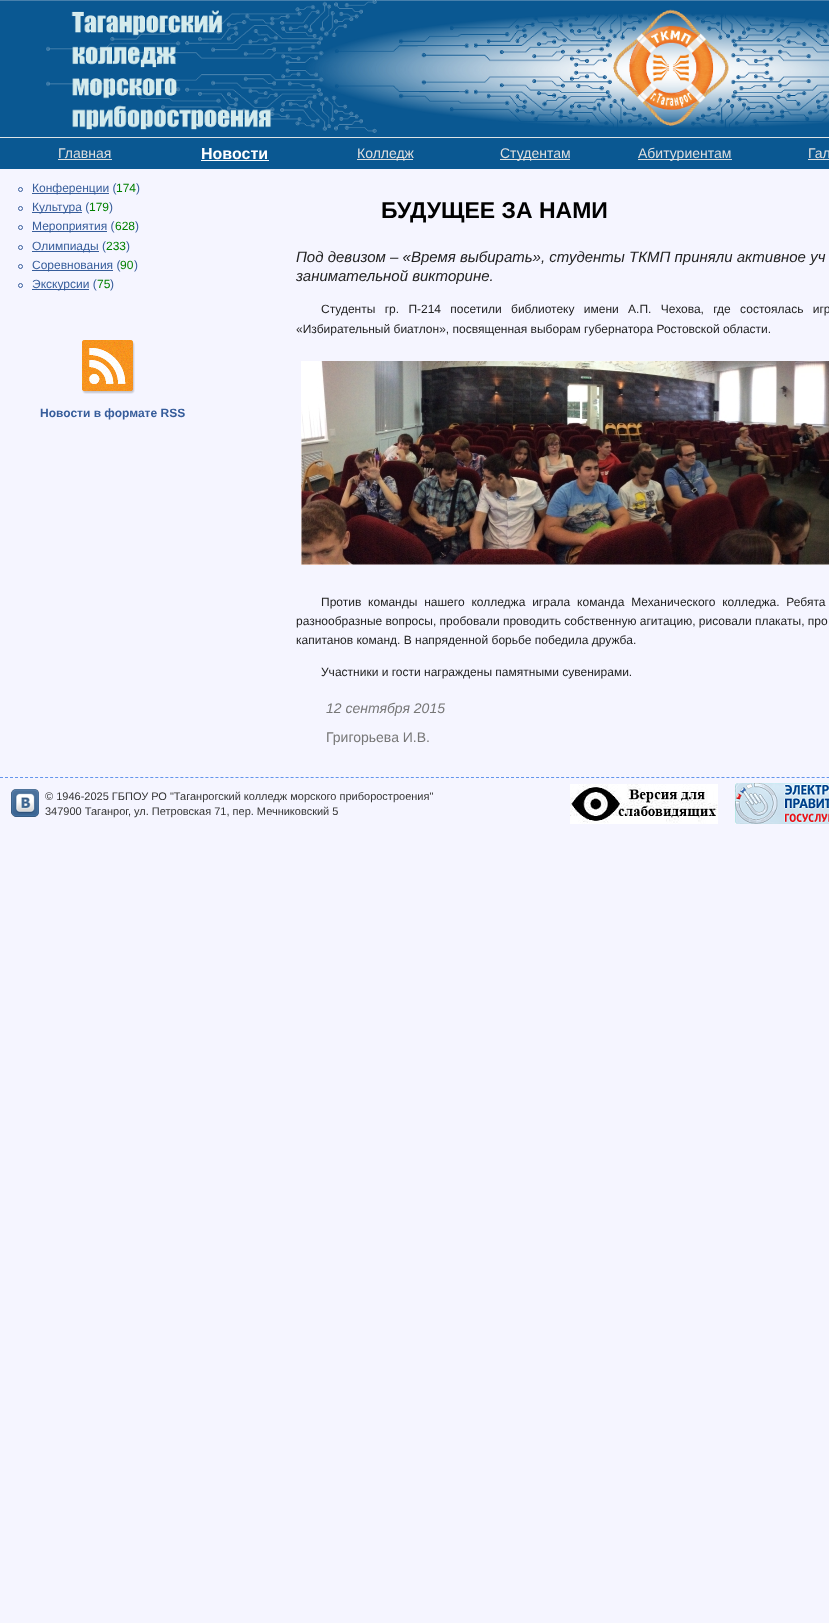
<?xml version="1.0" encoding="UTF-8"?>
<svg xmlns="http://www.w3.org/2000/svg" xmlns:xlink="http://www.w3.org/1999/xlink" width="829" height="1623">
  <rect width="100%" height="100%" fill="#f5f5ff" />
  <rect y="137" width="829" height="1" fill="#dde4e6" />
  <image x="0" y="0" width="829" height="137" xlink:href="image1.png" />
  <rect y="138" width="829" height="31" fill="#0a5892" />
  <rect x="58" y="159" width="54" height="1" fill="#dfdfdf" />
  <rect x="201" y="160" width="68" height="1" fill="#ffffff" />
  <rect x="357" y="159" width="56" height="1" fill="#dfdfdf" />
  <rect x="500" y="159" width="70" height="1" fill="#dfdfdf" />
  <rect x="638" y="159" width="94" height="1" fill="#dfdfdf" />
  <rect x="808" y="159" width="21" height="1" fill="#dfdfdf" />
  <circle cx="20.5" cy="189.5" r="2" fill="none" stroke="#375d9b" />
  <rect x="32" y="193" width="77" height="1" fill="#375d9b" />
  <circle cx="20.5" cy="208.5" r="2" fill="none" stroke="#375d9b" />
  <rect x="32" y="212" width="50" height="1" fill="#375d9b" />
  <circle cx="20.5" cy="227.5" r="2" fill="none" stroke="#375d9b" />
  <rect x="32" y="231" width="75" height="1" fill="#375d9b" />
  <circle cx="20.5" cy="247.5" r="2" fill="none" stroke="#375d9b" />
  <rect x="32" y="251" width="67" height="1" fill="#375d9b" />
  <circle cx="20.5" cy="266.5" r="2" fill="none" stroke="#375d9b" />
  <rect x="32" y="270" width="81" height="1" fill="#375d9b" />
  <circle cx="20.5" cy="285.5" r="2" fill="none" stroke="#375d9b" />
  <rect x="32" y="289" width="57" height="1" fill="#375d9b" />
  <image x="82" y="340" width="53" height="54" xlink:href="image2.png" />
  <image x="301" y="361" width="528" height="204" xlink:href="image3.png" />
  <path d="M 0 777.5 h 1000" fill="none" stroke="#6495ed" stroke-dasharray="3 2.01" />
  <image x="11" y="789" width="28" height="28" xlink:href="image4.png" />
  <image x="570" y="784" width="148" height="40" xlink:href="image5.png" />
  <image x="735" y="783" width="94" height="41" xlink:href="image6.png" />
  <text x="58" y="158" style="font-family: Liberation Sans; font-size: 14px; fill: #dfdfdf">Главная</text>
  <text x="201" y="159" style="font-family: Liberation Sans; font-size: 16px; font-weight: bold; fill: #ffffff">Новости</text>
  <text x="357" y="158" style="font-family: Liberation Sans; font-size: 14px; fill: #dfdfdf">Колледж</text>
  <text x="500" y="158" style="font-family: Liberation Sans; font-size: 14px; fill: #dfdfdf">Студентам</text>
  <text x="638" y="158" style="font-family: Liberation Sans; font-size: 14px; fill: #dfdfdf">Абитуриентам</text>
  <text x="808" y="158" style="font-family: Liberation Sans; font-size: 14px; fill: #dfdfdf">Гал</text>
  <text x="32" y="192" style="font-family: Liberation Sans; font-size: 12px; fill: #375d9b">Конференции (</text>
  <text x="116" y="192" style="font-family: Liberation Sans; font-size: 12px; fill: #008000">174</text>
  <text x="136" y="192" style="font-family: Liberation Sans; font-size: 12px; fill: #375d9b">)</text>
  <text x="32" y="211" style="font-family: Liberation Sans; font-size: 12px; fill: #375d9b">Культура (</text>
  <text x="89" y="211" style="font-family: Liberation Sans; font-size: 12px; fill: #008000">179</text>
  <text x="109" y="211" style="font-family: Liberation Sans; font-size: 12px; fill: #375d9b">)</text>
  <text x="32" y="230" style="font-family: Liberation Sans; font-size: 12px; fill: #375d9b">Мероприятия (</text>
  <text x="115" y="230" style="font-family: Liberation Sans; font-size: 12px; fill: #008000">628</text>
  <text x="135" y="230" style="font-family: Liberation Sans; font-size: 12px; fill: #375d9b">)</text>
  <text x="32" y="250" style="font-family: Liberation Sans; font-size: 12px; fill: #375d9b">Олимпиады (</text>
  <text x="106" y="250" style="font-family: Liberation Sans; font-size: 12px; fill: #008000">233</text>
  <text x="126" y="250" style="font-family: Liberation Sans; font-size: 12px; fill: #375d9b">)</text>
  <text x="32" y="269" style="font-family: Liberation Sans; font-size: 12px; fill: #375d9b">Соревнования (</text>
  <text x="120" y="269" style="font-family: Liberation Sans; font-size: 12px; fill: #008000">90</text>
  <text x="134" y="269" style="font-family: Liberation Sans; font-size: 12px; fill: #375d9b">)</text>
  <text x="32" y="288" style="font-family: Liberation Sans; font-size: 12px; fill: #375d9b">Экскурсии (</text>
  <text x="97" y="288" style="font-family: Liberation Sans; font-size: 12px; fill: #008000">75</text>
  <text x="110" y="288" style="font-family: Liberation Sans; font-size: 12px; fill: #375d9b">)</text>
  <text x="40" y="417" style="font-family: Liberation Sans; font-size: 12px; font-weight: bold; fill: #375d9b">Новости в формате RSS</text>
  <text x="381" y="218" style="font-family: Liberation Sans; font-size: 23px; font-weight: bold; fill: #000000">БУДУЩЕЕ ЗА НАМИ</text>
  <text x="296" y="262" style="font-family: Liberation Sans; font-size: 15px; font-style: italic; fill: #222222">Под девизом – «Время выбирать», студенты ТКМП приняли активное уч</text>
  <text x="296" y="281" style="font-family: Liberation Sans; font-size: 15px; font-style: italic; fill: #222222">занимательной викторине.</text>
  <text x="321" y="313" word-spacing="6" style="font-family: Liberation Sans; font-size: 12px; fill: #222222">Студенты гр. П-214 посетили библиотеку имени А.П. Чехова, где состоялась игр</text>
  <text x="296" y="333" style="font-family: Liberation Sans; font-size: 12px; fill: #222222">«Избирательный биатлон», посвященная выборам губернатора Ростовской области.</text>
  <text x="321" y="606" word-spacing="3.5" style="font-family: Liberation Sans; font-size: 12px; fill: #222222">Против команды нашего колледжа играла команда Механического колледжа. Ребята</text>
  <text x="296" y="625" style="font-family: Liberation Sans; font-size: 12px; fill: #222222">разнообразные вопросы, пробовали проводить собственную агитацию, рисовали плакаты, про</text>
  <text x="296" y="644" style="font-family: Liberation Sans; font-size: 12px; fill: #222222">капитанов команд. В напряденной борьбе победила дружба.</text>
  <text x="321" y="676" style="font-family: Liberation Sans; font-size: 12px; fill: #222222">Участники и гости награждены памятными сувенирами.</text>
  <text x="326" y="713" style="font-family: Liberation Sans; font-size: 14px; font-style: italic; fill: #777777">12 сентября 2015</text>
  <text x="326" y="742" style="font-family: Liberation Sans; font-size: 14px; fill: #777777">Григорьева И.В.</text>
  <text x="45" y="800" style="font-family: Liberation Sans; font-size: 11px; fill: #333333">© 1946-2025 ГБПОУ РО "Таганрогский колледж морского приборостроения"</text>
  <text x="45" y="815" style="font-family: Liberation Sans; font-size: 11px; fill: #333333">347900 Таганрог, ул. Петровская 71, пер. Мечниковский 5</text>
</svg>
